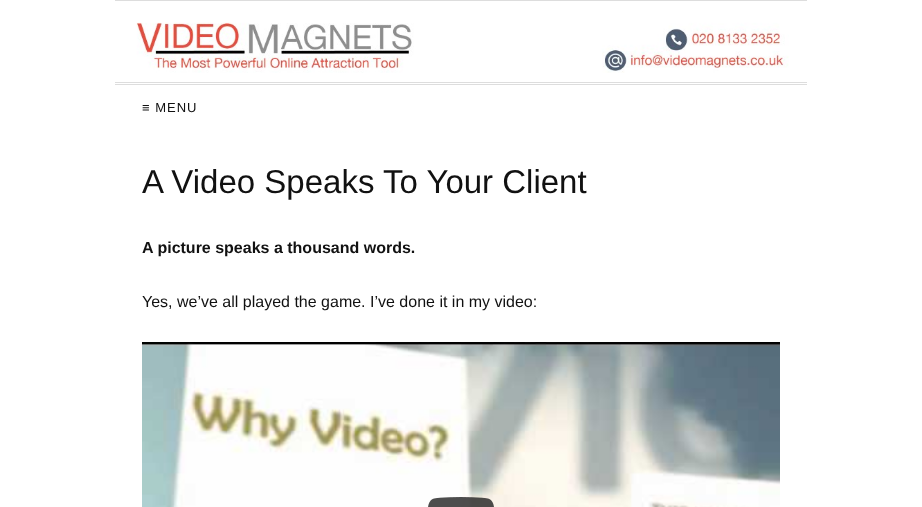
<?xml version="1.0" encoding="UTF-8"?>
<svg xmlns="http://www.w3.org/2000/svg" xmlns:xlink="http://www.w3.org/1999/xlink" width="922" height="507">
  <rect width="100%" height="100%" fill="#ffffff" />
  <rect x="115" width="692" height="1" fill="#dddddd" />
  <rect x="115" y="82" width="692" height="1" fill="#dddddd" />
  <rect x="115" y="84" width="692" height="1" fill="#dddddd" />
  <image x="136" y="22" width="653" height="51" xlink:href="image1.png" />
  <image x="142" y="342" width="638" height="165" xlink:href="image2.png" />
  <image x="428" y="497" width="66" height="10" xlink:href="image3.png" />
  <text x="142" y="112" style="font-family: Liberation Sans; font-size: 13px; letter-spacing: 1px; fill: #111111">≡ MENU</text>
  <text x="142" y="193" style="font-family: Liberation Sans; font-size: 33px; fill: #111111">A Video Speaks To Your Client</text>
  <text x="142" y="253" style="font-family: Liberation Sans; font-size: 16px; font-weight: bold; fill: #111111">A picture speaks a thousand words.</text>
  <text x="142" y="307" style="font-family: Liberation Sans; font-size: 16px; fill: #111111">Yes, we’ve all played the game. I’ve done it in my video:</text>
</svg>
